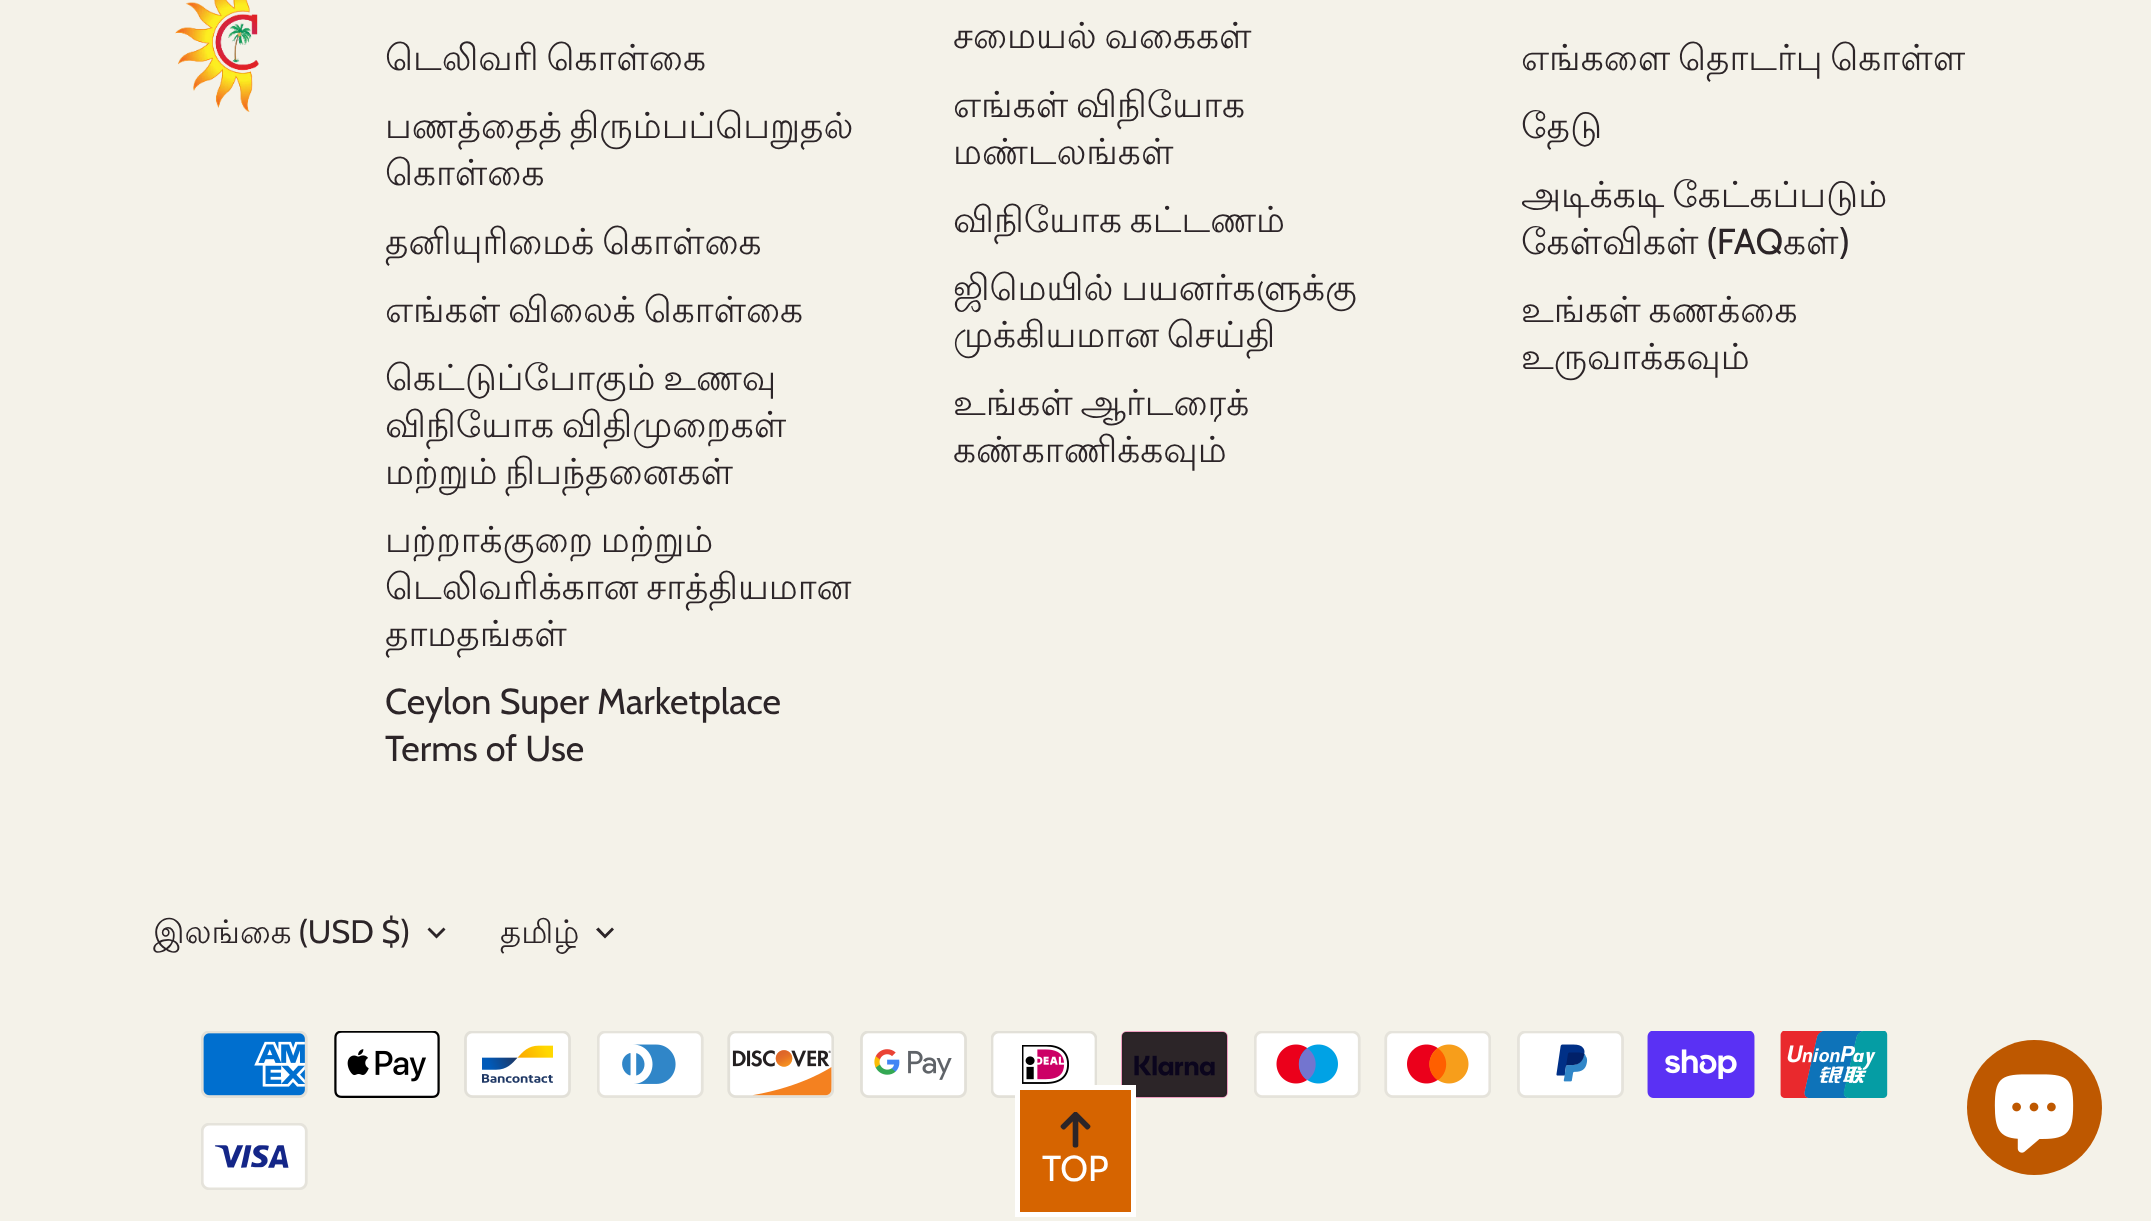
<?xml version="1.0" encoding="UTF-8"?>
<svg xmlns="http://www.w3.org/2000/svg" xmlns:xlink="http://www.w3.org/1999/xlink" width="2151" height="1221">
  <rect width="100%" height="100%" fill="#f4f2e9" />
  <image x="175" y="0" width="84" height="112" xlink:href="image1.png" />
  <path d="M 429.5 927.5 l 7 7 l 7 -7 l 2 2 l -9 9 l -9 -9 z" fill="#2c2528" />
  <path d="M 598.5 927.5 l 6.5 7 l 7 -7 l 2 2 l -9 9 l -9 -9 z" fill="#2c2528" />
  <image x="201" y="1031" width="107" height="67" xlink:href="image2.png" />
  <image x="334" y="1031" width="106" height="67" xlink:href="image3.png" />
  <image x="464" y="1031" width="107" height="67" xlink:href="image4.png" />
  <image x="597" y="1031" width="107" height="67" xlink:href="image5.png" />
  <image x="727" y="1031" width="107" height="67" xlink:href="image6.png" />
  <image x="860" y="1031" width="107" height="67" xlink:href="image7.png" />
  <image x="991" y="1031" width="106" height="67" xlink:href="image8.png" />
  <image x="1121" y="1031" width="107" height="67" xlink:href="image9.png" />
  <image x="1254" y="1031" width="107" height="67" xlink:href="image10.png" />
  <image x="1384" y="1031" width="107" height="67" xlink:href="image11.png" />
  <image x="1517" y="1031" width="107" height="67" xlink:href="image12.png" />
  <image x="1647" y="1031" width="108" height="67" xlink:href="image13.png" />
  <image x="1780" y="1031" width="108" height="67" xlink:href="image14.png" />
  <image x="201" y="1123" width="107" height="67" xlink:href="image15.png" />
  <rect x="1017.5" y="1087.5" width="116" height="127" fill="#d66400" stroke="#ffffff" stroke-width="5" />
  <image x="1060" y="1112" width="31" height="36" xlink:href="image16.png" />
  <circle cx="2034.5" cy="1107.5" r="67.5" fill="#be5800" />
  <image x="1994" y="1074" width="80" height="79" xlink:href="image17.png" />
  <text x="385" y="70" word-spacing="-3" style="font-family: Lohit Tamil; font-size: 36px; fill: #2c2528">டெலிவரி கொள்கை</text>
  <text x="385" y="138" word-spacing="-3" style="font-family: Lohit Tamil; font-size: 36px; fill: #2c2528">பணத்தைத் திரும்பப்பெறுதல்</text>
  <text x="385" y="185" style="font-family: Lohit Tamil; font-size: 36px; fill: #2c2528">கொள்கை</text>
  <text x="385" y="254" word-spacing="-3" style="font-family: Lohit Tamil; font-size: 36px; fill: #2c2528">தனியுரிமைக் கொள்கை</text>
  <text x="385" y="322" word-spacing="-3" style="font-family: Lohit Tamil; font-size: 36px; fill: #2c2528">எங்கள் விலைக் கொள்கை</text>
  <text x="385" y="390" word-spacing="-3" style="font-family: Lohit Tamil; font-size: 36px; fill: #2c2528">கெட்டுப்போகும் உணவு</text>
  <text x="385" y="437" word-spacing="-3" style="font-family: Lohit Tamil; font-size: 36px; fill: #2c2528">விநியோக விதிமுறைகள்</text>
  <text x="385" y="484" word-spacing="-3" style="font-family: Lohit Tamil; font-size: 36px; fill: #2c2528">மற்றும் நிபந்தனைகள்</text>
  <text x="385" y="552" word-spacing="-3" style="font-family: Lohit Tamil; font-size: 36px; fill: #2c2528">பற்றாக்குறை மற்றும்</text>
  <text x="385" y="599" word-spacing="-3" style="font-family: Lohit Tamil; font-size: 36px; fill: #2c2528">டெலிவரிக்கான சாத்தியமான</text>
  <text x="385" y="646" style="font-family: Lohit Tamil; font-size: 36px; fill: #2c2528">தாமதங்கள்</text>
  <text x="385" y="714" style="font-family: Cabin; font-size: 36px; fill: #2c2528">Ceylon Super Marketplace</text>
  <text x="385" y="761" style="font-family: Cabin; font-size: 36px; fill: #2c2528">Terms of Use</text>
  <text x="953" y="48" word-spacing="-3" style="font-family: Lohit Tamil; font-size: 36px; fill: #2c2528">சமையல் வகைகள்</text>
  <text x="953" y="117" word-spacing="-3" style="font-family: Lohit Tamil; font-size: 36px; fill: #2c2528">எங்கள் விநியோக</text>
  <text x="953" y="164" style="font-family: Lohit Tamil; font-size: 36px; fill: #2c2528">மண்டலங்கள்</text>
  <text x="953" y="232" word-spacing="-3" style="font-family: Lohit Tamil; font-size: 36px; fill: #2c2528">விநியோக கட்டணம்</text>
  <text x="953" y="300" word-spacing="-3" style="font-family: Lohit Tamil; font-size: 36px; fill: #2c2528">ஜிமெயில் பயனர்களுக்கு</text>
  <text x="953" y="347" word-spacing="-3" style="font-family: Lohit Tamil; font-size: 36px; fill: #2c2528">முக்கியமான செய்தி</text>
  <text x="953" y="415" word-spacing="-3" style="font-family: Lohit Tamil; font-size: 36px; fill: #2c2528">உங்கள் ஆர்டரைக்</text>
  <text x="953" y="462" style="font-family: Lohit Tamil; font-size: 36px; fill: #2c2528">கண்காணிக்கவும்</text>
  <text x="1521" y="70" word-spacing="-3" style="font-family: Lohit Tamil; font-size: 36px; fill: #2c2528">எங்களை தொடர்பு கொள்ள</text>
  <text x="1521" y="138" style="font-family: Lohit Tamil; font-size: 36px; fill: #2c2528">தேடு</text>
  <text x="1521" y="207" word-spacing="-3" style="font-family: Lohit Tamil; font-size: 36px; fill: #2c2528">அடிக்கடி கேட்கப்படும்</text>
  <text x="1521" y="254" style="font-family: Lohit Tamil; font-size: 36px; fill: #2c2528">கேள்விகள்</text>
  <text x="1706" y="254" style="font-family: Cabin; font-size: 36px; fill: #2c2528">(FAQ</text>
  <text x="1783" y="254" style="font-family: Lohit Tamil; font-size: 36px; fill: #2c2528">கள்</text>
  <text x="1839" y="254" style="font-family: Cabin; font-size: 36px; fill: #2c2528">)</text>
  <text x="1521" y="322" word-spacing="-3" style="font-family: Lohit Tamil; font-size: 36px; fill: #2c2528">உங்கள் கணக்கை</text>
  <text x="1521" y="369" style="font-family: Lohit Tamil; font-size: 36px; fill: #2c2528">உருவாக்கவும்</text>
  <text x="153" y="943" style="font-family: Lohit Tamil; font-size: 32.5px; fill: #2c2528">இலங்கை</text>
  <text x="298" y="943" style="font-family: Cabin; font-size: 32.5px; fill: #2c2528">(USD $)</text>
  <text x="500" y="943" style="font-family: Lohit Tamil; font-size: 32.5px; fill: #2c2528">தமிழ்</text>
  <text x="1042" y="1181" style="font-family: Cabin; font-size: 36px; fill: #ffffff">TOP</text>
</svg>
